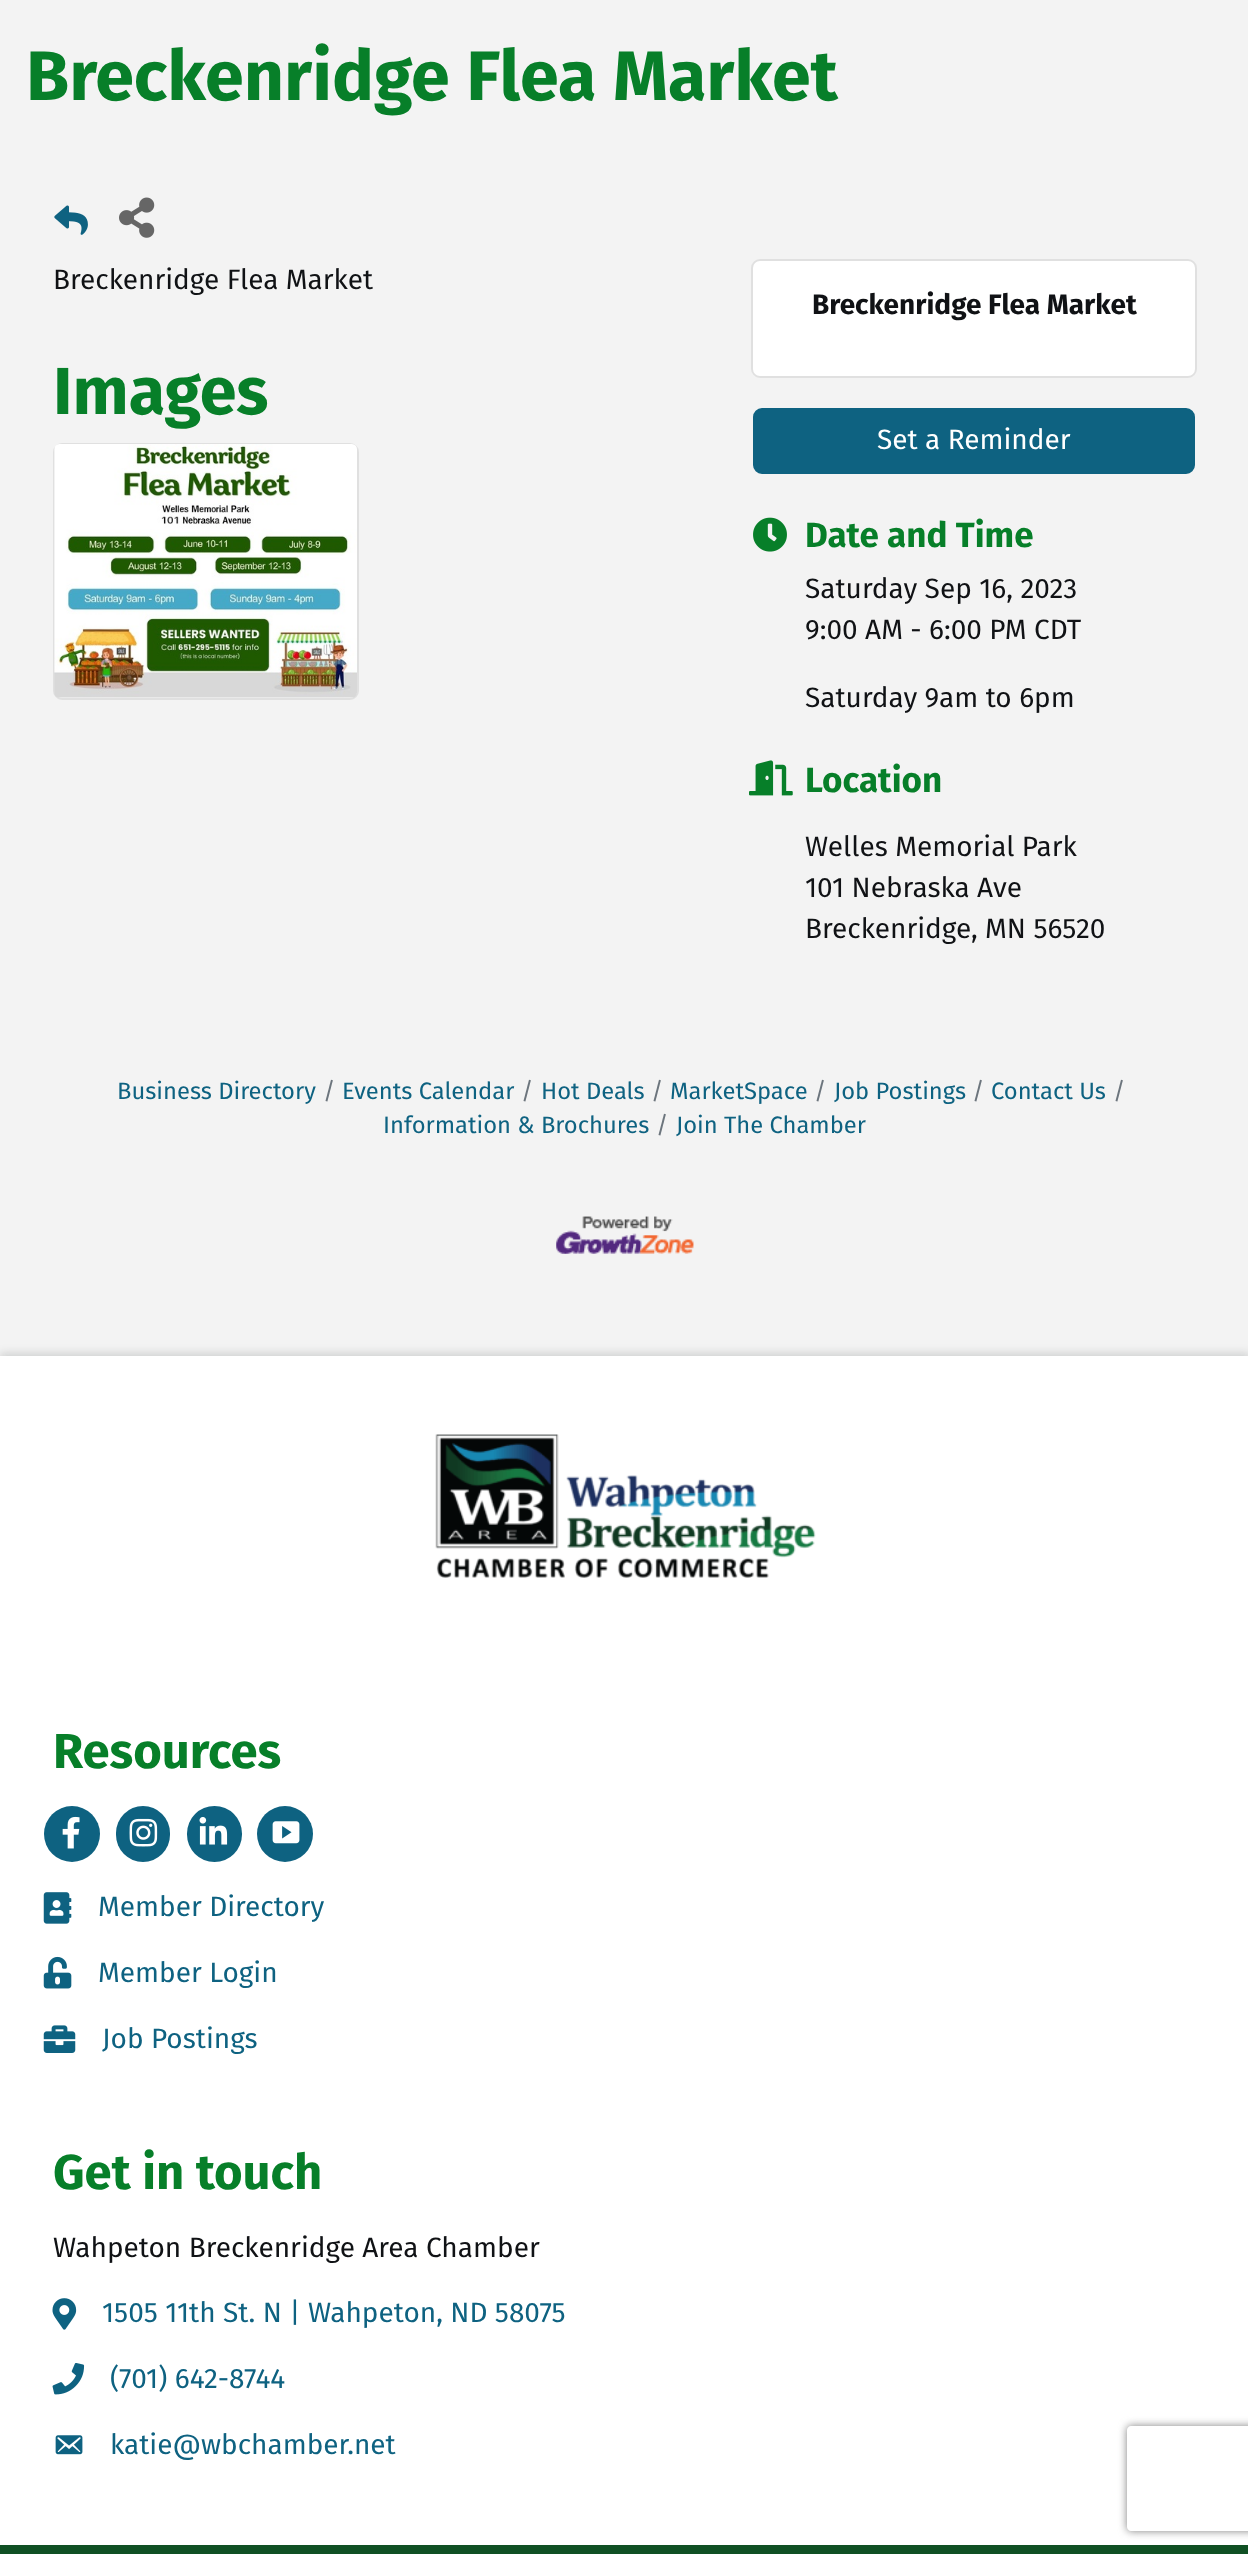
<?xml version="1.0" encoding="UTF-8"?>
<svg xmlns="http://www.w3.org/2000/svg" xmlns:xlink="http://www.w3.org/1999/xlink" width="1248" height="2554">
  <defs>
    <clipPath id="clip1"><path d="M 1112 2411 h 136 v 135 h -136 z m 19 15 h 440 c 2 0 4 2 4 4 v 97 c 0 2 -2 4 -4 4 h -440 c -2 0 -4 -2 -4 -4 v -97 c 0 -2 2 -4 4 -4 z" clip-rule="evenodd" /></clipPath>
  </defs>
  <rect width="100%" height="100%" fill="#f3f3f3" />
  <image x="54" y="205" width="34" height="30" xlink:href="image1.png" />
  <image x="119" y="197" width="36" height="41" xlink:href="image2.png" />
  <rect x="53" y="443" width="306" height="257" rx="9" fill="#ffffff" />
  <rect x="54" y="444" width="304" height="255" rx="8" fill="none" stroke="#000000" stroke-opacity="0.12" stroke-width="2" />
  <image x="54" y="444" width="303" height="254" xlink:href="image3.png" />
  <rect x="751" y="259" width="446" height="119" rx="9" fill="#ffffff" />
  <rect x="752" y="260" width="444" height="117" rx="8" fill="none" stroke="#000000" stroke-opacity="0.12" stroke-width="2" />
  <rect x="754" y="409" width="440" height="64" rx="8" fill="#0e6281" stroke="#0e6281" stroke-width="2" />
  <image x="753" y="517" width="34" height="35" xlink:href="image4.png" />
  <image x="749" y="760" width="44" height="36" xlink:href="image5.png" />
  <image x="556" y="1216" width="138" height="38" xlink:href="image6.png" />
  <rect y="1353" width="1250" height="1188" fill="#101215" fill-opacity="0.15" filter="blur(4.5px)" />
  <rect y="1356" width="1248" height="1189" fill="#ffffff" />
  <image x="435" y="1434" width="381" height="144" xlink:href="image7.png" />
  <circle cx="72" cy="1834" r="28" fill="#0e6281" />
  <image x="62" y="1816" width="18" height="33" xlink:href="image8.png" />
  <rect x="116" y="1806" width="54" height="56" rx="27" fill="#0e6281" />
  <image x="129" y="1818" width="29" height="29" xlink:href="image9.png" />
  <rect x="187" y="1806" width="55" height="56" rx="27.5" fill="#0e6281" />
  <image x="199" y="1817" width="29" height="28" xlink:href="image10.png" />
  <circle cx="285" cy="1834" r="28" fill="#0e6281" />
  <image x="272" y="1821" width="28" height="23" xlink:href="image11.png" />
  <image x="43" y="1892" width="29" height="32" xlink:href="image12.png" />
  <image x="43" y="1956" width="29" height="33" xlink:href="image13.png" />
  <image x="43" y="2025" width="33" height="28" xlink:href="image14.png" />
  <image x="52" y="2298" width="25" height="32" xlink:href="image15.png" />
  <image x="52" y="2363" width="33" height="32" xlink:href="image16.png" />
  <image x="55" y="2435" width="28" height="20" xlink:href="image17.png" />
  <rect y="2545" width="1248" height="9" fill="#105024" />
  <g clip-path="url(#clip1)">
    <rect x="1127" y="2426" width="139" height="105" rx="4" fill="#808080" filter="blur(4.5px)" />
  </g>
  <text x="26" y="100" style="font-family: Fira Sans; font-size: 70px; font-weight: bold; fill: #077f29">Breckenridge Flea Market</text>
  <text x="53" y="289" style="font-family: Fira Sans; font-size: 28px; fill: #101215">Breckenridge Flea Market</text>
  <text x="53" y="414" style="font-family: Fira Sans; font-size: 66.5px; font-weight: bold; fill: #077f29">Images</text>
  <text x="812" y="314" style="font-family: Fira Sans; font-size: 28px; font-weight: bold; fill: #101215">Breckenridge Flea Market</text>
  <text x="877" y="449" style="font-family: Fira Sans; font-size: 28px; fill: #ffffff">Set a Reminder</text>
  <text x="805" y="547" style="font-family: Fira Sans; font-size: 35px; font-weight: bold; fill: #077f29">Date and Time</text>
  <text x="805" y="598" style="font-family: Fira Sans; font-size: 28px; fill: #101215">Saturday Sep 16, 2023</text>
  <text x="805" y="639" style="font-family: Fira Sans; font-size: 28px; fill: #101215">9:00 AM - 6:00 PM CDT</text>
  <text x="805" y="707" style="font-family: Fira Sans; font-size: 28px; fill: #101215">Saturday 9am to 6pm</text>
  <text x="805" y="792" style="font-family: Fira Sans; font-size: 35px; font-weight: bold; fill: #077f29">Location</text>
  <text x="805" y="856" style="font-family: Fira Sans; font-size: 28px; fill: #101215">Welles Memorial Park</text>
  <text x="805" y="897" style="font-family: Fira Sans; font-size: 28px; fill: #101215">101 Nebraska Ave</text>
  <text x="805" y="938" style="font-family: Fira Sans; font-size: 28px; fill: #101215">Breckenridge, MN 56520</text>
  <text x="323" y="1099" style="font-family: Fira Sans; font-size: 23.75px; fill: #6c757d">/</text>
  <text x="342" y="1099" style="font-family: Fira Sans; font-size: 23.75px; fill: #0e6281">Events Calendar</text>
  <text x="1113" y="1099" style="font-family: Fira Sans; font-size: 23.75px; fill: #6c757d">/</text>
  <text x="383" y="1133" style="font-family: Fira Sans; font-size: 23.75px; fill: #0e6281">Information &amp; Brochures</text>
  <text x="117" y="1099" style="font-family: Fira Sans; font-size: 23.75px; fill: #0e6281">Business Directory</text>
  <text x="521" y="1099" style="font-family: Fira Sans; font-size: 23.75px; fill: #6c757d">/</text>
  <text x="541" y="1099" style="font-family: Fira Sans; font-size: 23.75px; fill: #0e6281">Hot Deals</text>
  <text x="651" y="1099" style="font-family: Fira Sans; font-size: 23.75px; fill: #6c757d">/</text>
  <text x="670" y="1099" style="font-family: Fira Sans; font-size: 23.75px; fill: #0e6281">MarketSpace</text>
  <text x="814" y="1099" style="font-family: Fira Sans; font-size: 23.75px; fill: #6c757d">/</text>
  <text x="834" y="1099" style="font-family: Fira Sans; font-size: 23.75px; fill: #0e6281">Job Postings</text>
  <text x="972" y="1099" style="font-family: Fira Sans; font-size: 23.75px; fill: #6c757d">/</text>
  <text x="991" y="1099" style="font-family: Fira Sans; font-size: 23.75px; fill: #0e6281">Contact Us</text>
  <text x="656" y="1133" style="font-family: Fira Sans; font-size: 23.75px; fill: #6c757d">/</text>
  <text x="676" y="1133" style="font-family: Fira Sans; font-size: 23.75px; fill: #0e6281">Join The Chamber</text>
  <text x="53" y="1768" style="font-family: Fira Sans; font-size: 49px; font-weight: bold; fill: #077f29">Resources</text>
  <text x="98" y="1916" style="font-family: Fira Sans; font-size: 28px; fill: #0e6281">Member Directory</text>
  <text x="98" y="1982" style="font-family: Fira Sans; font-size: 28px; fill: #0e6281">Member Login</text>
  <text x="102" y="2048" style="font-family: Fira Sans; font-size: 28px; fill: #0e6281">Job Postings</text>
  <text x="53" y="2189" style="font-family: Fira Sans; font-size: 49px; font-weight: bold; fill: #077f29">Get in touch</text>
  <text x="53" y="2257" style="font-family: Fira Sans; font-size: 28px; fill: #101215">Wahpeton Breckenridge Area Chamber</text>
  <text x="102" y="2322" style="font-family: Fira Sans; font-size: 28px; fill: #0e6281">1505 11th St. N | Wahpeton, ND 58075</text>
  <text x="110" y="2388" style="font-family: Fira Sans; font-size: 28px; fill: #0e6281">(701) 642-8744</text>
  <text x="110" y="2454" style="font-family: Fira Sans; font-size: 28px; fill: #0e6281">katie@wbchamber.net</text>
</svg>
